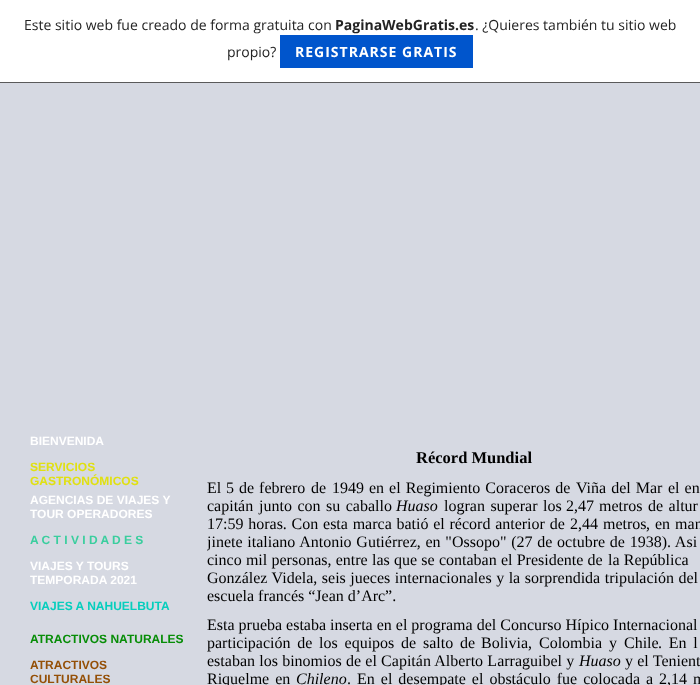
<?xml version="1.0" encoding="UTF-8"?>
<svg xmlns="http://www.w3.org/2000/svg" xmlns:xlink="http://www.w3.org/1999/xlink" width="700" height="685">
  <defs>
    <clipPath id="clip1"><rect x="207" y="448" width="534" height="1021" /></clipPath>
  </defs>
  <rect width="100%" height="100%" fill="#d6d9e2" />
  <rect width="700" height="82" fill="#ffffff" />
  <rect y="82" width="700" height="1" fill="#5a5a5a" />
  <rect x="280" y="35" width="193" height="33" fill="#0055cc" />
  <text x="24" y="30" style="font-family: Open Sans; font-size: 14px; fill: #232323">Este sitio web fue creado de forma gratuita con</text>
  <text x="335" y="30" style="font-family: Open Sans; font-size: 14px; font-weight: bold; fill: #232323">PaginaWebGratis.es</text>
  <text x="475" y="30" style="font-family: Open Sans; font-size: 14px; fill: #232323">. ¿Quieres también tu sitio web</text>
  <text x="227" y="57" style="font-family: Open Sans; font-size: 14px; fill: #232323">propio?</text>
  <text x="295" y="57" style="font-family: Open Sans; font-size: 14px; font-weight: bold; letter-spacing: 1px; fill: #ffffff">REGISTRARSE GRATIS</text>
  <text x="30" y="445" style="font-family: Liberation Sans; font-size: 12px; font-weight: bold; fill: #ffffff">BIENVENIDA</text>
  <text x="30" y="471" style="font-family: Liberation Sans; font-size: 12px; font-weight: bold; fill: #e0e012">SERVICIOS</text>
  <text x="30" y="485" style="font-family: Liberation Sans; font-size: 12px; font-weight: bold; fill: #e0e012">GASTRONÓMICOS</text>
  <text x="30" y="504" style="font-family: Liberation Sans; font-size: 12px; font-weight: bold; fill: #ffffff">AGENCIAS DE VIAJES Y</text>
  <text x="30" y="518" style="font-family: Liberation Sans; font-size: 12px; font-weight: bold; fill: #ffffff">TOUR OPERADORES</text>
  <text x="30" y="544" style="font-family: Liberation Sans; font-size: 12px; font-weight: bold; fill: #3ace9e">A C T I V I D A D E S</text>
  <text x="30" y="570" style="font-family: Liberation Sans; font-size: 12px; font-weight: bold; fill: #ffffff">VIAJES Y TOURS</text>
  <text x="30" y="584" style="font-family: Liberation Sans; font-size: 12px; font-weight: bold; fill: #ffffff">TEMPORADA 2021</text>
  <text x="30" y="610" style="font-family: Liberation Sans; font-size: 12px; font-weight: bold; fill: #07cebd">VIAJES A NAHUELBUTA</text>
  <text x="30" y="643" style="font-family: Liberation Sans; font-size: 12px; font-weight: bold; fill: #078d07">ATRACTIVOS NATURALES</text>
  <text x="30" y="669" style="font-family: Liberation Sans; font-size: 12px; font-weight: bold; fill: #944f06">ATRACTIVOS</text>
  <text x="30" y="683" style="font-family: Liberation Sans; font-size: 12px; font-weight: bold; fill: #944f06">CULTURALES</text>
  <text x="416" y="463" style="font-family: Liberation Serif; font-size: 16.5px; font-weight: bold; fill: #000000">Récord Mundial</text>
  <text x="207" y="493" style="font-family: Liberation Serif; font-size: 16px; fill: #000000">El</text>
  <text x="226" y="493" word-spacing="1" style="font-family: Liberation Serif; font-size: 16px; fill: #000000">5 de febrero</text>
  <text x="311" y="493" style="font-family: Liberation Serif; font-size: 16px; fill: #000000">de</text>
  <text x="332" y="493" style="font-family: Liberation Serif; font-size: 16px; fill: #000000">1949</text>
  <text x="369" y="493" word-spacing="1" style="font-family: Liberation Serif; font-size: 16px; fill: #000000">en el Regimiento Coraceros de</text>
  <text x="576" y="493" word-spacing="1" style="font-family: Liberation Serif; font-size: 16px; fill: #000000">Viña del Mar</text>
  <text x="668" y="493" word-spacing="1" style="font-family: Liberation Serif; font-size: 16px; fill: #000000">el en</text>
  <text x="207" y="511" style="font-family: Liberation Serif; font-size: 16px; fill: #000000">capitán</text>
  <text x="259" y="511" word-spacing="1.5" style="font-family: Liberation Serif; font-size: 16px; fill: #000000">junto con su caballo</text>
  <text x="396" y="511" style="font-family: Liberation Serif; font-size: 16px; font-style: italic; fill: #000000">Huaso</text>
  <text x="444" y="511" word-spacing="1.5" style="font-family: Liberation Serif; font-size: 16px; fill: #000000">logran superar los</text>
  <text x="566" y="511" word-spacing="1" style="font-family: Liberation Serif; font-size: 16px; fill: #000000">2,47 metros</text>
  <text x="648" y="511" word-spacing="1.5" style="font-family: Liberation Serif; font-size: 16px; fill: #000000">de altur</text>
  <text x="207" y="529" word-spacing="0.75" style="font-family: Liberation Serif; font-size: 16px; fill: #000000">17:59 horas. Con esta marca batió el récord anterior de</text>
  <text x="570" y="529" word-spacing="1" style="font-family: Liberation Serif; font-size: 16px; fill: #000000">2,44 metros</text>
  <text x="646" y="529" word-spacing="1" style="font-family: Liberation Serif; font-size: 16px; fill: #000000">, en man</text>
  <g clip-path="url(#clip1)">
    <text x="207" y="547" word-spacing="0.75" style="font-family: Liberation Serif; font-size: 16px; fill: #000000">jinete italiano Antonio Gutiérrez, en "Ossopo" (27 de octubre de 1938). Asi</text>
  </g>
  <text x="207" y="565" word-spacing="0.25" style="font-family: Liberation Serif; font-size: 16px; fill: #000000">cinco mil personas, entre las que se contaban el Presidente de</text>
  <text x="608" y="565" word-spacing="0.25" style="font-family: Liberation Serif; font-size: 16px; fill: #000000">la República</text>
  <text x="207" y="583" word-spacing="0.5" style="font-family: Liberation Serif; font-size: 16px; fill: #000000">González Videla, seis jueces internacionales y la sorprendida tripulación del</text>
  <text x="207" y="601" style="font-family: Liberation Serif; font-size: 16px; fill: #000000">escuela francés “Jean d’Arc”.</text>
  <text x="207" y="630" style="font-family: Liberation Serif; font-size: 16px; fill: #000000">Esta prueba estaba inserta en el programa del Concurso Hípico Internacional</text>
  <text x="207" y="648" word-spacing="2.75" style="font-family: Liberation Serif; font-size: 16px; fill: #000000">participación de los equipos de salto de</text>
  <text x="481" y="648" style="font-family: Liberation Serif; font-size: 16px; fill: #000000">Bolivia,</text>
  <text x="539" y="648" style="font-family: Liberation Serif; font-size: 16px; fill: #000000">Colombia</text>
  <text x="609" y="648" style="font-family: Liberation Serif; font-size: 16px; fill: #000000">y</text>
  <text x="624" y="648" style="font-family: Liberation Serif; font-size: 16px; fill: #000000">Chile</text>
  <text x="658" y="648" word-spacing="2.75" style="font-family: Liberation Serif; font-size: 16px; fill: #000000">. En l</text>
  <text x="207" y="666" word-spacing="0.25" style="font-family: Liberation Serif; font-size: 16px; fill: #000000">estaban los binomios de el Capitán Alberto Larraguibel y</text>
  <text x="579" y="666" style="font-family: Liberation Serif; font-size: 16px; font-style: italic; fill: #000000">Huaso</text>
  <text x="625" y="666" word-spacing="0.25" style="font-family: Liberation Serif; font-size: 16px; fill: #000000">y el Tenient</text>
  <text x="207" y="684" word-spacing="2" style="font-family: Liberation Serif; font-size: 16px; fill: #000000">Riquelme en</text>
  <text x="296" y="684" style="font-family: Liberation Serif; font-size: 16px; font-style: italic; fill: #000000">Chileno</text>
  <text x="347" y="684" word-spacing="2" style="font-family: Liberation Serif; font-size: 16px; fill: #000000">. En el desempate el obstáculo fue colocada a</text>
  <text x="659" y="684" word-spacing="2" style="font-family: Liberation Serif; font-size: 16px; fill: #000000">2,14 m</text>
</svg>
